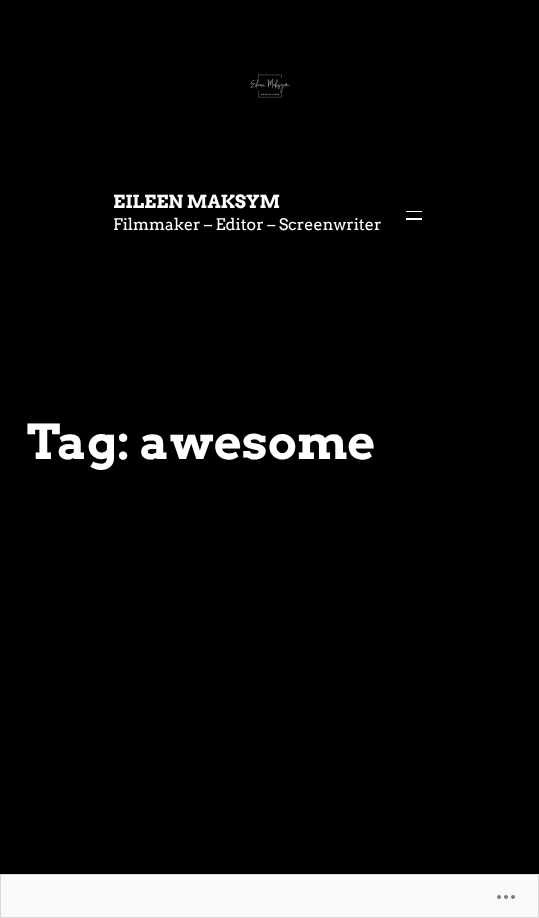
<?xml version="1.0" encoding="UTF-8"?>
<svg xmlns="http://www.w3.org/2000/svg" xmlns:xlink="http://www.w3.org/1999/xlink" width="539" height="918">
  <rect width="100%" height="100%" fill="#000000" />
  <image x="250" y="74" width="40" height="24" xlink:href="image1.png" />
  <rect x="406" y="211" width="16" height="1" fill="#ffffff" />
  <rect x="406" y="218" width="16" height="2" fill="#ffffff" />
  <rect x="0.5" y="874.5" width="538" height="43" fill="#fafafa" stroke="#d8d8da" />
  <image x="497" y="895" width="18" height="4" xlink:href="image2.png" />
  <text x="113" y="208" style="font-family: Arvo; font-size: 18px; font-weight: bold; fill: #ffffff">EILEEN MAKSYM</text>
  <text x="113" y="230" style="font-family: Arvo; font-size: 16px; fill: #ffffff">Filmmaker – Editor – Screenwriter</text>
  <text x="27" y="459" style="font-family: Arvo; font-size: 48px; font-weight: bold; fill: #ffffff">Tag: awesome</text>
</svg>
